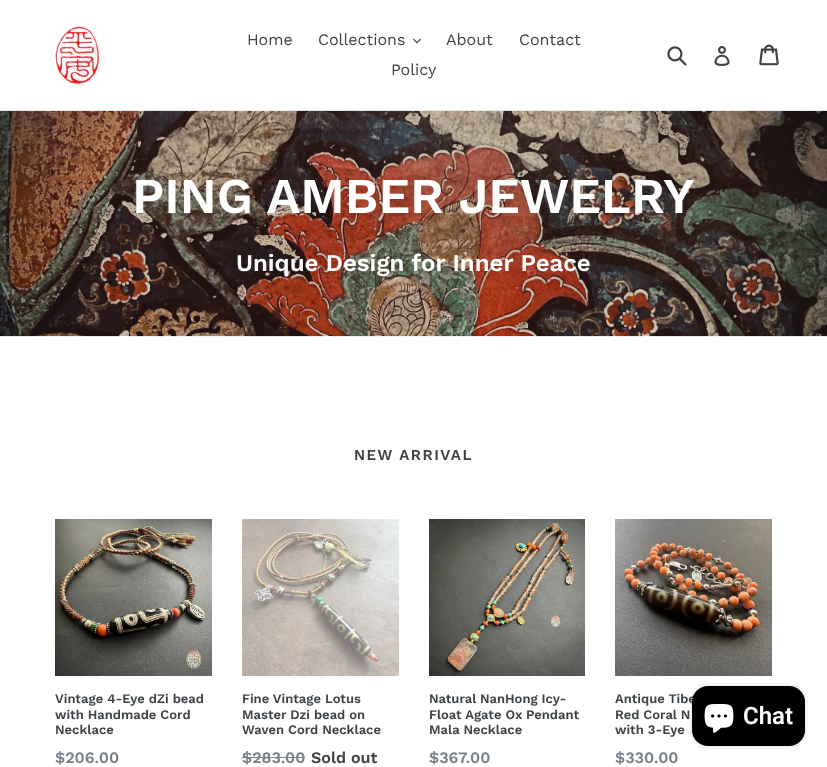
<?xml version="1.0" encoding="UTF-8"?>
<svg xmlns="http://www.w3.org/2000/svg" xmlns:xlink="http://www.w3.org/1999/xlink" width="827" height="767">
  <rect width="100%" height="100%" fill="#ffffff" />
  <rect y="110" width="827" height="1" fill="#e8e9eb" />
  <image x="55" y="26" width="45" height="58" xlink:href="image1.png" />
  <image x="413" y="38" width="8" height="6" xlink:href="image2.png" />
  <image x="667" y="46" width="20" height="20" xlink:href="image3.png" />
  <image x="714" y="46" width="16" height="20" xlink:href="image4.png" />
  <image x="759" y="44" width="20" height="22" xlink:href="image5.png" />
  <image x="0" y="111" width="827" height="226" xlink:href="image6.png" />
  <image x="55" y="519" width="157" height="157" xlink:href="image7.png" />
  <image x="242" y="519" width="157" height="157" xlink:href="image8.png" />
  <rect x="242" y="757" width="63" height="1" fill="#788188" />
  <image x="429" y="519" width="156" height="157" xlink:href="image9.png" />
  <image x="615" y="519" width="157" height="157" xlink:href="image10.png" />
  <rect x="692" y="686" width="113" height="60" rx="16" fill="#000000" fill-opacity="0.15" filter="blur(2.5px)" />
  <text x="247" y="45" style="font-family: Work Sans; font-size: 16px; fill: #3d4246">Home</text>
  <text x="318" y="45" style="font-family: Work Sans; font-size: 16px; fill: #3d4246">Collections</text>
  <text x="446" y="45" style="font-family: Work Sans; font-size: 16px; fill: #3d4246">About</text>
  <text x="519" y="45" style="font-family: Work Sans; font-size: 16px; fill: #3d4246">Contact</text>
  <text x="391" y="75" style="font-family: Work Sans; font-size: 16px; fill: #3d4246">Policy</text>
  <text x="132" y="213" style="font-family: Work Sans; font-size: 50px; font-weight: 600; fill: #ffffff">PING AMBER JEWELRY</text>
  <text x="236" y="271" style="font-family: Work Sans; font-size: 24px; font-weight: 600; fill: #ffffff">Unique Design for Inner Peace</text>
  <text x="354" y="460" style="font-family: Work Sans; font-size: 15px; font-weight: 600; letter-spacing: 1.5px; fill: #3d4246">NEW ARRIVAL</text>
  <text x="55" y="703" style="font-family: Work Sans; font-size: 13px; font-weight: 600; fill: #3d4246">Vintage 4-Eye dZi bead</text>
  <text x="55" y="719" style="font-family: Work Sans; font-size: 13px; font-weight: 600; fill: #3d4246">with Handmade Cord</text>
  <text x="55" y="734" style="font-family: Work Sans; font-size: 13px; font-weight: 600; fill: #3d4246">Necklace</text>
  <text x="55" y="763" style="font-family: Work Sans; font-size: 16px; font-weight: 600; fill: #788188">$206.00</text>
  <text x="242" y="703" style="font-family: Work Sans; font-size: 13px; font-weight: 600; fill: #3d4246">Fine Vintage Lotus</text>
  <text x="242" y="719" style="font-family: Work Sans; font-size: 13px; font-weight: 600; fill: #3d4246">Master Dzi bead on</text>
  <text x="242" y="734" style="font-family: Work Sans; font-size: 13px; font-weight: 600; fill: #3d4246">Waven Cord Necklace</text>
  <text x="242" y="763" style="font-family: Work Sans; font-size: 16px; font-weight: 600; fill: #788188">$283.00</text>
  <text x="311" y="763" style="font-family: Work Sans; font-size: 16px; font-weight: 600; fill: #3d4246">Sold out</text>
  <text x="429" y="703" style="font-family: Work Sans; font-size: 13px; font-weight: 600; fill: #3d4246">Natural NanHong Icy-</text>
  <text x="429" y="719" style="font-family: Work Sans; font-size: 13px; font-weight: 600; fill: #3d4246">Float Agate Ox Pendant</text>
  <text x="429" y="734" style="font-family: Work Sans; font-size: 13px; font-weight: 600; fill: #3d4246">Mala Necklace</text>
  <text x="429" y="763" style="font-family: Work Sans; font-size: 16px; font-weight: 600; fill: #788188">$367.00</text>
  <text x="615" y="703" style="font-family: Work Sans; font-size: 13px; font-weight: 600; fill: #3d4246">Antique Tibe</text>
  <text x="615" y="719" style="font-family: Work Sans; font-size: 13px; font-weight: 600; fill: #3d4246">Red Coral N</text>
  <text x="615" y="734" style="font-family: Work Sans; font-size: 13px; font-weight: 600; fill: #3d4246">with 3-Eye</text>
  <text x="615" y="763" style="font-family: Work Sans; font-size: 16px; font-weight: 600; fill: #788188">$330.00</text>
  <rect x="692" y="686" width="113" height="60" rx="16" fill="#000000" />
  <image x="704" y="704" width="30" height="29" xlink:href="image11.png" />
  <text x="743" y="724" style="font-family: Roboto; font-size: 24px; font-weight: 600; fill: #ffffff">Chat</text>
</svg>
